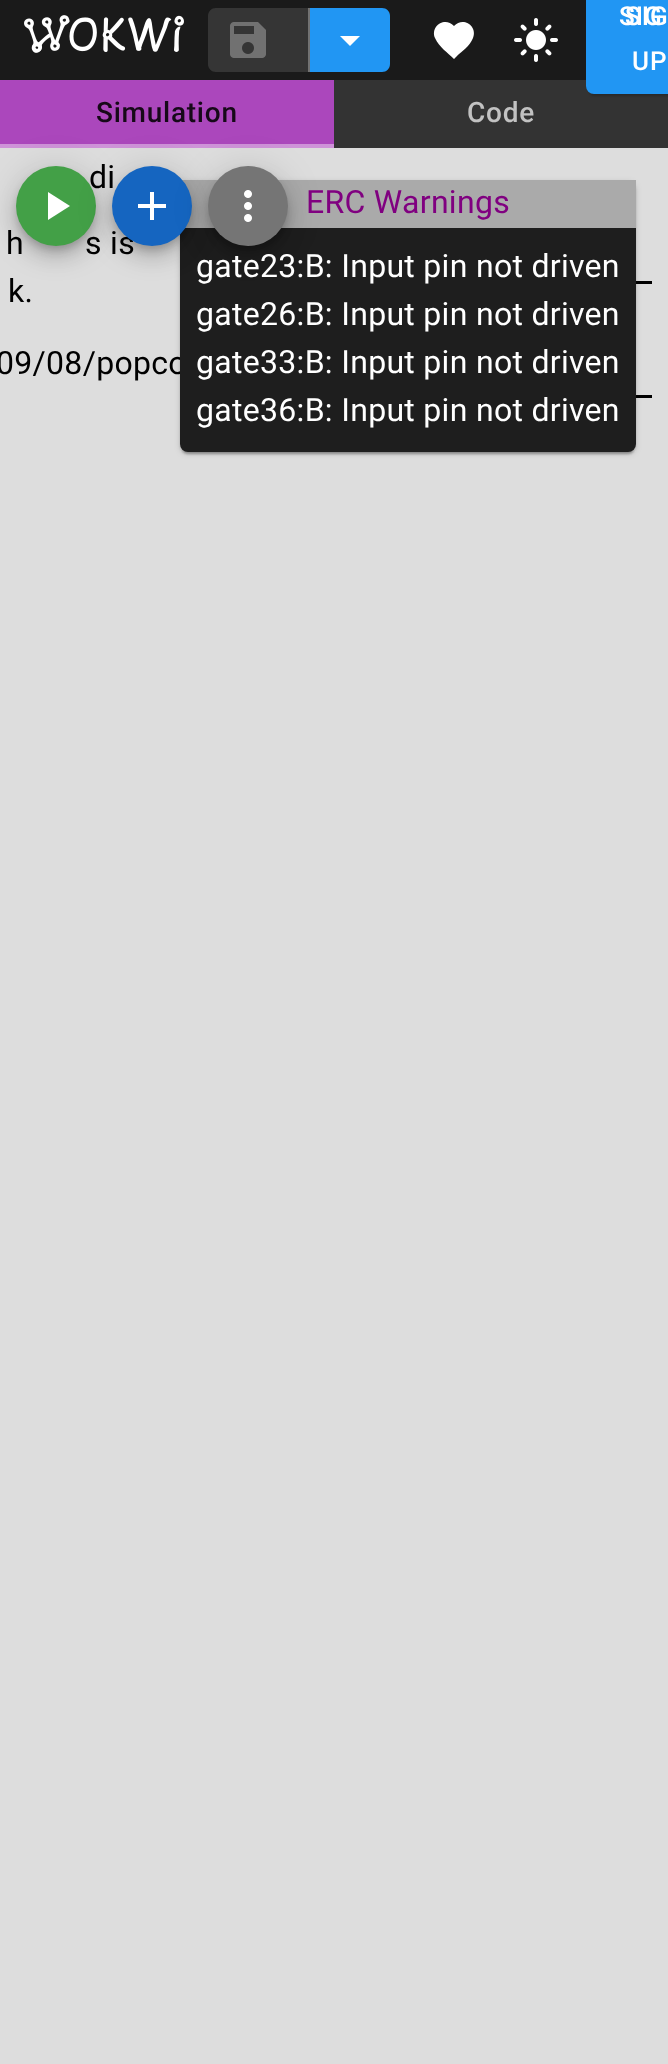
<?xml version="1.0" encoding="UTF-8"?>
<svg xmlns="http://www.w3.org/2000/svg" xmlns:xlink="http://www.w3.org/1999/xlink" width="668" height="2064">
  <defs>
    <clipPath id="clip1"><rect x="460" y="244" width="192" height="74" /></clipPath>
    <clipPath id="clip2"><rect x="460" y="358" width="192" height="76" /></clipPath>
  </defs>
  <rect width="100%" height="100%" fill="#333333" />
  <rect width="586" height="80" fill="#1a1a1a" />
  <image x="24" y="15" width="160" height="38" xlink:href="image1.png" />
  <path d="M 216 8 h 94 v 64 h -94 c -4.5 0 -8 -3.5 -8 -8 v -48 c 0 -4.5 3.5 -8 8 -8 z" fill="#ffffff" fill-opacity="0.12" />
  <rect x="308" y="8" width="2" height="64" fill="#727272" />
  <image x="230" y="22" width="36" height="36" xlink:href="image2.png" />
  <path d="M 310 8 h 72 c 4.5 0 8 3.5 8 8 v 48 c 0 4.5 -3.5 8 -8 8 h -72 z" fill="#2196f3" />
  <path d="M 340 36 l 10 10 l 10 -10 z" fill="#ffffff" />
  <path d="M 454 59 c -6 -6 -15 -12 -19 -21 c -5 -12 10 -22 19 -12 c 9 -10 24 0 19 12 c -3 8 -11 13 -16 18 z" fill="#ffffff" />
  <image x="514" y="18" width="44" height="44" xlink:href="image3.png" />
  <rect x="590" y="-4" width="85" height="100" rx="4" fill="#000000" fill-opacity="0.2" filter="blur(1px)" />
  <rect x="586" y="-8" width="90" height="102" rx="8" fill="#2196f3" />
  <rect y="80" width="334" height="64" fill="#ab47bc" />
  <rect y="144" width="334" height="4" fill="#ce93d8" />
  <rect y="148" width="668" height="1916" fill="#dddddd" />
  <rect x="16" y="168" width="80" height="80" rx="40" fill="#000000" fill-opacity="0.12" filter="blur(18px)" />
  <rect x="16" y="178" width="80" height="80" rx="40" fill="#000000" fill-opacity="0.14" filter="blur(10px)" />
  <rect x="18" y="174" width="76" height="76" rx="38" fill="#000000" fill-opacity="0.2" filter="blur(5px)" />
  <g clip-path="url(#clip1)">
    <path d="M 525 263 h -65 z m 0 38.5 h -65 m 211 -19 h -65.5" fill="none" stroke="#000000" stroke-width="3" />
  </g>
  <g clip-path="url(#clip2)">
    <path d="M 517.5 377 h -57.5 z m 0 38.5 h -57.5 m 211 -19 h -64.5" fill="none" stroke="#000000" stroke-width="3" />
  </g>
  <rect x="180" y="182" width="456" height="272" rx="8" fill="#000000" fill-opacity="0.12" filter="blur(3px)" />
  <rect x="180" y="182" width="456" height="272" rx="8" fill="#000000" fill-opacity="0.14" filter="blur(1px)" />
  <rect x="182" y="186" width="452" height="268" rx="6" fill="#000000" fill-opacity="0.2" filter="blur(1px)" />
  <text x="619" y="25" style="font-family: Roboto; font-size: 26px; font-weight: 500; letter-spacing: 1px; fill: #ffffff">SIG</text>
  <text x="625" y="25" style="font-family: Roboto; font-size: 26px; font-weight: 500; letter-spacing: 1px; fill: #ffffff">SIG</text>
  <text x="632" y="70" style="font-family: Roboto; font-size: 26px; font-weight: 500; letter-spacing: 1px; fill: #ffffff">UP</text>
  <text x="96" y="122" style="font-family: Roboto; font-size: 28px; font-weight: 500; letter-spacing: 0.75px; fill: #160918">Simulation</text>
  <text x="467" y="122" style="font-family: Roboto; font-size: 28px; font-weight: 500; letter-spacing: 0.75px; fill: #c2c2c2">Code</text>
  <text x="89" y="188" style="font-family: Roboto; font-size: 32px; letter-spacing: 0.3px; fill: #000000">di</text>
  <text x="6" y="254" style="font-family: Roboto; font-size: 32px; letter-spacing: 0.3px; fill: #000000">h</text>
  <text x="85" y="254" style="font-family: Roboto; font-size: 32px; letter-spacing: 0.3px; fill: #000000">s is</text>
  <circle cx="56" cy="206" r="40" fill="#43a047" />
  <path d="M 48 192 v 28 l 22 -14 z" fill="#ffffff" />
  <text x="8" y="302" style="font-family: Roboto; font-size: 32px; letter-spacing: 0.3px; fill: #000000">k.</text>
  <text x="-4" y="374" style="font-family: Roboto; font-size: 32px; letter-spacing: 0.3px; fill: #000000">09/08/popco</text>
  <rect x="180" y="180" width="456" height="272" rx="8" fill="#121212" />
  <rect x="180" y="228" width="456" height="224" fill="#ffffff" fill-opacity="0.05" />
  <rect x="182" y="180" width="454" height="48" fill="#aaaaaa" />
  <rect x="210" y="174" width="76" height="76" rx="38" fill="#000000" fill-opacity="0.2" filter="blur(5px)" />
  <rect x="114" y="174" width="76" height="76" rx="38" fill="#000000" fill-opacity="0.2" filter="blur(5px)" />
  <rect x="112" y="178" width="80" height="80" rx="40" fill="#000000" fill-opacity="0.14" filter="blur(10px)" />
  <rect x="112" y="168" width="80" height="80" rx="40" fill="#000000" fill-opacity="0.12" filter="blur(18px)" />
  <circle cx="152" cy="206" r="40" fill="#1565c0" />
  <rect x="208" y="178" width="80" height="80" rx="40" fill="#000000" fill-opacity="0.14" filter="blur(10px)" />
  <image x="138" y="192" width="28" height="28" xlink:href="image4.png" />
  <rect x="208" y="168" width="80" height="80" rx="40" fill="#000000" fill-opacity="0.12" filter="blur(18px)" />
  <circle cx="248" cy="206" r="40" fill="#757575" />
  <image x="244" y="190" width="8" height="32" xlink:href="image5.png" />
  <text x="306" y="213" style="font-family: Roboto; font-size: 32px; letter-spacing: 0.3px; fill: #800080">ERC Warnings</text>
  <text x="196" y="277" style="font-family: Roboto; font-size: 32px; letter-spacing: 0.3px; fill: #ffffff">gate23:B: Input pin not driven</text>
  <text x="196" y="325" style="font-family: Roboto; font-size: 32px; letter-spacing: 0.3px; fill: #ffffff">gate26:B: Input pin not driven</text>
  <text x="196" y="373" style="font-family: Roboto; font-size: 32px; letter-spacing: 0.3px; fill: #ffffff">gate33:B: Input pin not driven</text>
  <text x="196" y="421" style="font-family: Roboto; font-size: 32px; letter-spacing: 0.3px; fill: #ffffff">gate36:B: Input pin not driven</text>
</svg>
